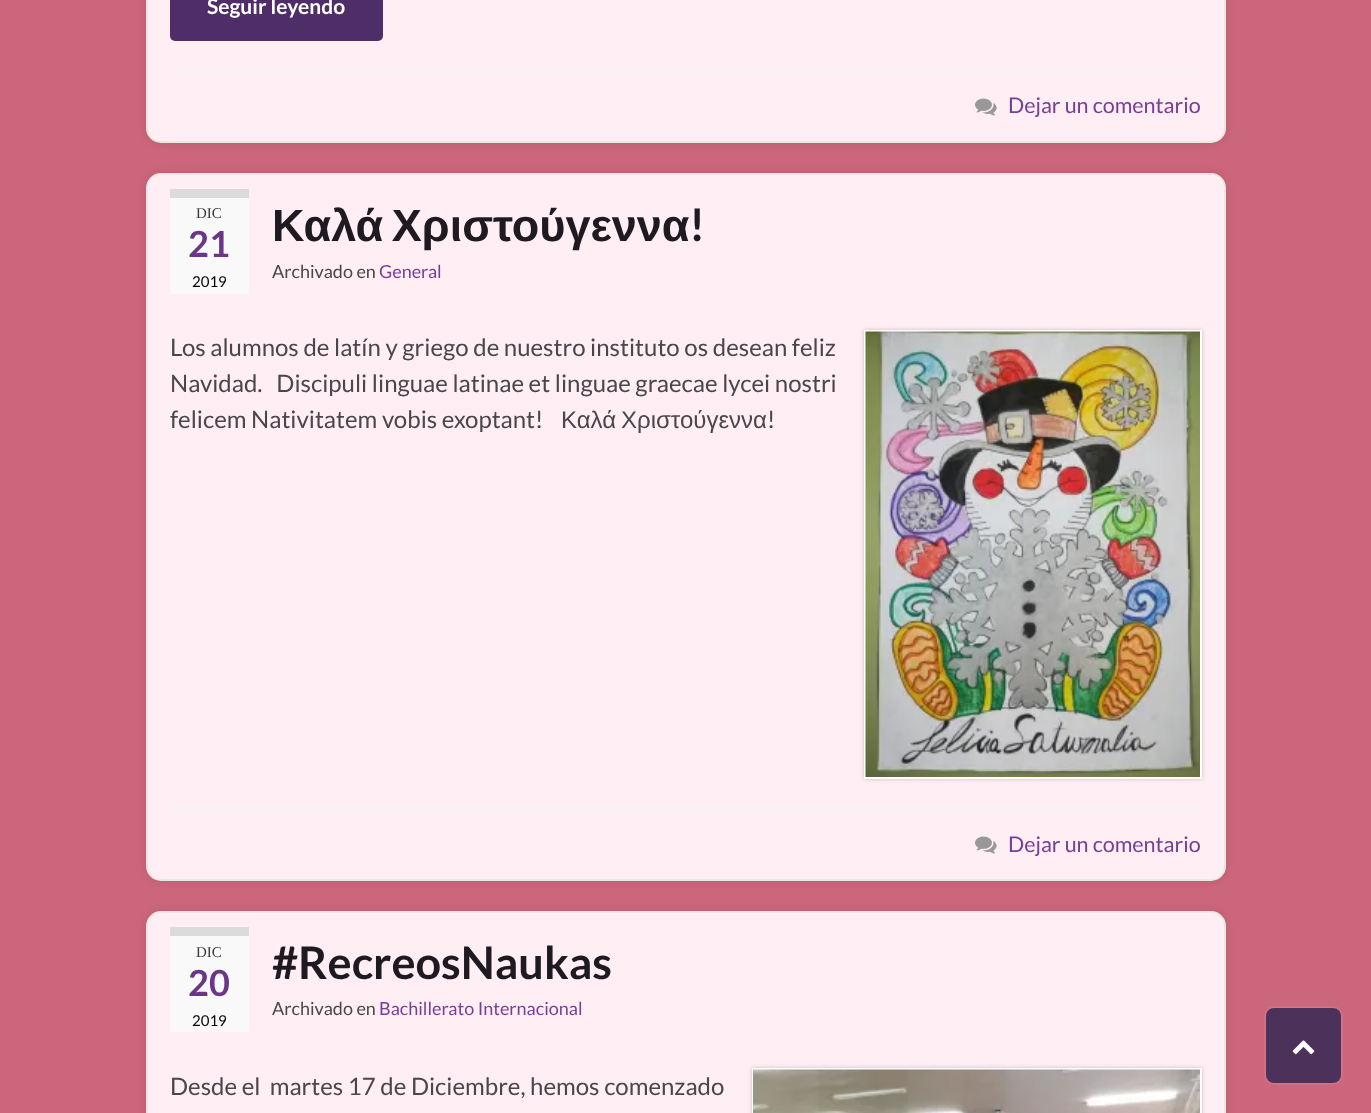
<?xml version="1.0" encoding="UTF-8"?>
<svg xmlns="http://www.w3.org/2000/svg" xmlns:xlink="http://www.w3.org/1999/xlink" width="1371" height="1113">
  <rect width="100%" height="100%" fill="#cc667c" />
  <rect x="146" y="-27" width="1080" height="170" rx="15" fill="#000000" fill-opacity="0.1" filter="blur(4px)" />
  <rect x="147" y="-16" width="1078" height="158" rx="14" fill="#ffeef4" stroke="#e9e8e3" stroke-width="2" />
  <rect x="170" y="-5" width="213" height="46" rx="5" fill="#4f2d69" />
  <rect x="170" y="71" width="1032" height="2" fill="#f5f5f5" />
  <image x="975" y="98" width="22" height="18" xlink:href="image1.png" />
  <rect x="146" y="173" width="1080" height="708" rx="15" fill="#000000" fill-opacity="0.1" filter="blur(4px)" />
  <rect x="147" y="174" width="1078" height="706" rx="14" fill="#ffeef4" stroke="#e9e8e3" stroke-width="2" />
  <rect x="170" y="198" width="79" height="96" fill="#f9f9f9" />
  <rect x="170" y="189" width="79" height="9" fill="#dbdbdb" />
  <rect x="864" y="330" width="338" height="449" fill="#000000" fill-opacity="0.2" filter="blur(2px)" />
  <rect x="865" y="331" width="336" height="447" fill="none" stroke="#ffffff" stroke-width="2" />
  <image x="865" y="331" width="335" height="446" xlink:href="image2.png" />
  <rect x="170" y="809" width="1032" height="2" fill="#f5f5f5" />
  <image x="975" y="836" width="22" height="18" xlink:href="image1.png" />
  <rect x="146" y="911" width="1080" height="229" rx="15" fill="#000000" fill-opacity="0.1" filter="blur(4px)" />
  <rect x="147" y="912" width="1078" height="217" rx="14" fill="#ffeef4" stroke="#e9e8e3" stroke-width="2" />
  <rect x="170" y="936" width="79" height="96" fill="#f9f9f9" />
  <rect x="170" y="927" width="79" height="9" fill="#dbdbdb" />
  <rect x="752" y="1068" width="450" height="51" fill="#000000" fill-opacity="0.2" filter="blur(2px)" />
  <rect x="753" y="1069" width="448" height="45" fill="none" stroke="#ffffff" stroke-width="2" />
  <image x="753" y="1069" width="447" height="44" xlink:href="image3.png" />
  <rect x="1266" y="1008" width="75" height="75" rx="8" fill="#ffffff" fill-opacity="0.3" filter="blur(1.5px)" />
  <rect x="1266" y="1008" width="75" height="75" rx="8" fill="#4c315a" />
  <image x="1292" y="1040" width="23" height="15" xlink:href="image4.png" />
  <text x="207" y="14" style="font-family: Lato; font-size: 21px; font-weight: bold; fill: #ffffff">Seguir leyendo</text>
  <text x="1008" y="113" style="font-family: Lato; font-size: 21.5px; fill: #783d98">Dejar un comentario</text>
  <text x="196" y="218" style="font-family: Liberation Serif; font-size: 15px; fill: #3b383d">DIC</text>
  <text x="188" y="257" style="font-family: Lato; font-size: 36px; font-weight: bold; fill: #6b3589">21</text>
  <text x="192" y="287" style="font-family: Lato; font-size: 15px; fill: #000000">2019</text>
  <text x="272" y="241" word-spacing="-4" style="font-family: Liberation Sans; font-size: 45px; font-weight: bold; fill: #1f1a22">Καλά Χριστούγεννα</text>
  <text x="689" y="241" style="font-family: Lato; font-size: 45px; font-weight: bold; fill: #1f1a22">!</text>
  <text x="272" y="278" style="font-family: Lato; font-size: 18px; fill: #4a474b">Archivado en</text>
  <text x="379" y="278" style="font-family: Lato; font-size: 18px; fill: #783d98">General</text>
  <text x="170" y="356" style="font-family: Lato; font-size: 24px; fill: #4a474b">Los alumnos de latín y griego de nuestro instituto os desean feliz</text>
  <text x="170" y="392" style="font-family: Lato; font-size: 24px; fill: #4a474b" xml:space="preserve">Navidad.   Discipuli linguae latinae et linguae graecae lycei nostri</text>
  <text x="170" y="428" style="font-family: Lato; font-size: 24px; fill: #4a474b">felicem Nativitatem vobis exoptant!</text>
  <text x="561" y="428" style="font-family: Liberation Sans; font-size: 24px; fill: #4a474b">Καλά</text>
  <text x="621" y="428" style="font-family: Liberation Sans; font-size: 24px; fill: #4a474b">Χριστούγεννα</text>
  <text x="767" y="428" style="font-family: Lato; font-size: 24px; fill: #4a474b">!</text>
  <text x="1008" y="852" style="font-family: Lato; font-size: 21.5px; fill: #783d98">Dejar un comentario</text>
  <text x="196" y="957" style="font-family: Liberation Serif; font-size: 15px; fill: #3b383d">DIC</text>
  <text x="188" y="996" style="font-family: Lato; font-size: 36px; font-weight: bold; fill: #6b3589">20</text>
  <text x="192" y="1026" style="font-family: Lato; font-size: 15px; fill: #000000">2019</text>
  <text x="272" y="979" style="font-family: Lato; font-size: 45px; font-weight: bold; fill: #1f1a22">#RecreosNaukas</text>
  <text x="272" y="1015" style="font-family: Lato; font-size: 18px; fill: #4a474b">Archivado en</text>
  <text x="379" y="1015" style="font-family: Lato; font-size: 18px; fill: #783d98">Bachillerato Internacional</text>
  <text x="170" y="1095" style="font-family: Lato; font-size: 24px; fill: #4a474b" xml:space="preserve">Desde el  martes 17 de Diciembre, hemos comenzado</text>
</svg>
